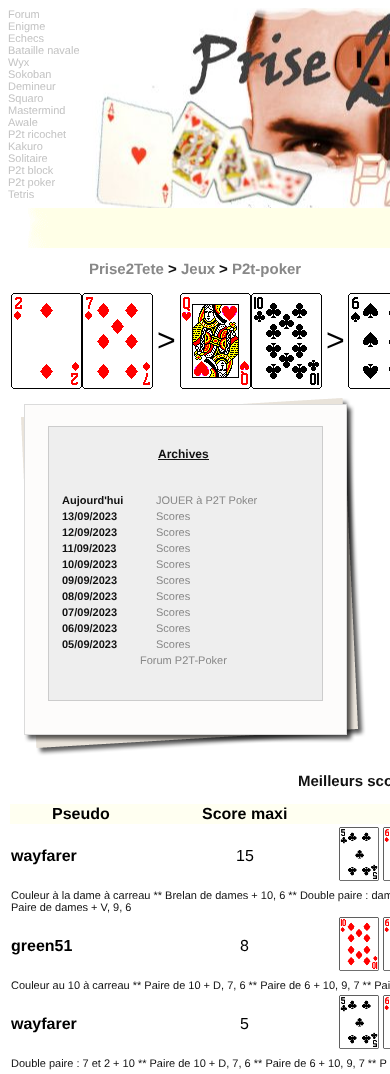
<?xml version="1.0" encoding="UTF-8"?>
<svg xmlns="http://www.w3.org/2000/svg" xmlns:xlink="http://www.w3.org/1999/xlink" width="390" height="1074">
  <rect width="100%" height="100%" fill="#ffffff" />
  <image x="92" y="8" width="298" height="200" xlink:href="image1.png" />
  <image x="28" y="208" width="362" height="40" xlink:href="image2.png" />
  <image x="11" y="293" width="71" height="96" xlink:href="image3.png" />
  <image x="82" y="293" width="71" height="96" xlink:href="image4.png" />
  <image x="180" y="293" width="71" height="96" xlink:href="image5.png" />
  <image x="251" y="293" width="71" height="96" xlink:href="image6.png" />
  <image x="348" y="293" width="42" height="96" xlink:href="image7.png" />
  <image x="21" y="398" width="345" height="358" xlink:href="image8.png" />
  <rect x="158" y="459" width="51" height="1" fill="#111111" />
  <rect x="10" y="804" width="380" height="20" fill="#fffff1" />
  <image x="339" y="827" width="40" height="54" xlink:href="image9.png" />
  <image x="383" y="827" width="7" height="54" xlink:href="image10.png" />
  <image x="339" y="917" width="40" height="54" xlink:href="image11.png" />
  <image x="383" y="917" width="7" height="54" xlink:href="image10.png" />
  <image x="339" y="995" width="40" height="54" xlink:href="image9.png" />
  <image x="383" y="995" width="7" height="54" xlink:href="image10.png" />
  <text x="8" y="18" style="font-family: Liberation Sans; font-size: 11px; fill: #c4c4c4">Forum</text>
  <text x="8" y="30" style="font-family: Liberation Sans; font-size: 11px; fill: #c4c4c4">Enigme</text>
  <text x="8" y="42" style="font-family: Liberation Sans; font-size: 11px; fill: #c4c4c4">Echecs</text>
  <text x="8" y="54" style="font-family: Liberation Sans; font-size: 11px; fill: #c4c4c4">Bataille navale</text>
  <text x="8" y="66" style="font-family: Liberation Sans; font-size: 11px; fill: #c4c4c4">Wyx</text>
  <text x="8" y="78" style="font-family: Liberation Sans; font-size: 11px; fill: #c4c4c4">Sokoban</text>
  <text x="8" y="90" style="font-family: Liberation Sans; font-size: 11px; fill: #c4c4c4">Demineur</text>
  <text x="8" y="102" style="font-family: Liberation Sans; font-size: 11px; fill: #c4c4c4">Squaro</text>
  <text x="8" y="114" style="font-family: Liberation Sans; font-size: 11px; fill: #c4c4c4">Mastermind</text>
  <text x="8" y="126" style="font-family: Liberation Sans; font-size: 11px; fill: #c4c4c4">Awale</text>
  <text x="8" y="138" style="font-family: Liberation Sans; font-size: 11px; fill: #c4c4c4">P2t ricochet</text>
  <text x="8" y="150" style="font-family: Liberation Sans; font-size: 11px; fill: #c4c4c4">Kakuro</text>
  <text x="8" y="162" style="font-family: Liberation Sans; font-size: 11px; fill: #c4c4c4">Solitaire</text>
  <text x="8" y="174" style="font-family: Liberation Sans; font-size: 11px; fill: #c4c4c4">P2t block</text>
  <text x="8" y="186" style="font-family: Liberation Sans; font-size: 11px; fill: #c4c4c4">P2t poker</text>
  <text x="8" y="198" style="font-family: Liberation Sans; font-size: 11px; fill: #c4c4c4">Tetris</text>
  <text x="89" y="274" style="font-family: Liberation Sans; font-size: 15px; font-weight: bold; fill: #888888">Prise2Tete</text>
  <text x="168" y="274" style="font-family: Liberation Sans; font-size: 15px; font-weight: bold; fill: #111111">&gt;</text>
  <text x="181" y="274" style="font-family: Liberation Sans; font-size: 15px; font-weight: bold; fill: #888888">Jeux</text>
  <text x="219" y="274" style="font-family: Liberation Sans; font-size: 15px; font-weight: bold; fill: #111111">&gt;</text>
  <text x="232" y="274" style="font-family: Liberation Sans; font-size: 15px; font-weight: bold; fill: #888888">P2t-poker</text>
  <text x="157" y="351" style="font-family: Liberation Sans; font-size: 32px; fill: #000000">&gt;</text>
  <text x="326" y="351" style="font-family: Liberation Sans; font-size: 32px; fill: #000000">&gt;</text>
  <text x="158" y="458" style="font-family: Liberation Sans; font-size: 12px; font-weight: bold; fill: #111111">Archives</text>
  <text x="62" y="504" style="font-family: Liberation Sans; font-size: 11px; font-weight: bold; fill: #111111">Aujourd'hui</text>
  <text x="156" y="504" style="font-family: Liberation Sans; font-size: 11px; fill: #888888">JOUER à P2T Poker</text>
  <text x="62" y="520" style="font-family: Liberation Sans; font-size: 11px; font-weight: bold; fill: #111111">13/09/2023</text>
  <text x="156" y="520" style="font-family: Liberation Sans; font-size: 11px; fill: #888888">Scores</text>
  <text x="62" y="536" style="font-family: Liberation Sans; font-size: 11px; font-weight: bold; fill: #111111">12/09/2023</text>
  <text x="156" y="536" style="font-family: Liberation Sans; font-size: 11px; fill: #888888">Scores</text>
  <text x="62" y="552" style="font-family: Liberation Sans; font-size: 11px; font-weight: bold; fill: #111111">11/09/2023</text>
  <text x="156" y="552" style="font-family: Liberation Sans; font-size: 11px; fill: #888888">Scores</text>
  <text x="62" y="568" style="font-family: Liberation Sans; font-size: 11px; font-weight: bold; fill: #111111">10/09/2023</text>
  <text x="156" y="568" style="font-family: Liberation Sans; font-size: 11px; fill: #888888">Scores</text>
  <text x="62" y="584" style="font-family: Liberation Sans; font-size: 11px; font-weight: bold; fill: #111111">09/09/2023</text>
  <text x="156" y="584" style="font-family: Liberation Sans; font-size: 11px; fill: #888888">Scores</text>
  <text x="62" y="600" style="font-family: Liberation Sans; font-size: 11px; font-weight: bold; fill: #111111">08/09/2023</text>
  <text x="156" y="600" style="font-family: Liberation Sans; font-size: 11px; fill: #888888">Scores</text>
  <text x="62" y="616" style="font-family: Liberation Sans; font-size: 11px; font-weight: bold; fill: #111111">07/09/2023</text>
  <text x="156" y="616" style="font-family: Liberation Sans; font-size: 11px; fill: #888888">Scores</text>
  <text x="62" y="632" style="font-family: Liberation Sans; font-size: 11px; font-weight: bold; fill: #111111">06/09/2023</text>
  <text x="156" y="632" style="font-family: Liberation Sans; font-size: 11px; fill: #888888">Scores</text>
  <text x="62" y="648" style="font-family: Liberation Sans; font-size: 11px; font-weight: bold; fill: #111111">05/09/2023</text>
  <text x="156" y="648" style="font-family: Liberation Sans; font-size: 11px; fill: #888888">Scores</text>
  <text x="140" y="664" style="font-family: Liberation Sans; font-size: 11px; fill: #888888">Forum P2T-Poker</text>
  <text x="298" y="786" style="font-family: Liberation Sans; font-size: 15px; font-weight: bold; fill: #111111">Meilleurs sco</text>
  <text x="52" y="819" style="font-family: Liberation Sans; font-size: 16px; font-weight: bold; fill: #000000">Pseudo</text>
  <text x="202" y="819" style="font-family: Liberation Sans; font-size: 16px; font-weight: bold; fill: #000000">Score maxi</text>
  <text x="11" y="861" style="font-family: Liberation Sans; font-size: 16px; font-weight: bold; fill: #000000">wayfarer</text>
  <text x="236" y="861" style="font-family: Liberation Sans; font-size: 16px; fill: #000000">15</text>
  <text x="11" y="899" style="font-family: Liberation Sans; font-size: 11px; fill: #111111">Couleur à la dame à carreau ** Brelan de dames + 10, 6 ** Double paire : dam</text>
  <text x="11" y="911" style="font-family: Liberation Sans; font-size: 11px; fill: #111111">Paire de dames + V, 9, 6</text>
  <text x="11" y="951" style="font-family: Liberation Sans; font-size: 16px; font-weight: bold; fill: #000000">green51</text>
  <text x="240" y="951" style="font-family: Liberation Sans; font-size: 16px; fill: #000000">8</text>
  <text x="11" y="989" style="font-family: Liberation Sans; font-size: 11px; fill: #111111">Couleur au 10 à carreau ** Paire de 10 + D, 7, 6 ** Paire de 6 + 10, 9, 7 ** Pai</text>
  <text x="11" y="1029" style="font-family: Liberation Sans; font-size: 16px; font-weight: bold; fill: #000000">wayfarer</text>
  <text x="240" y="1029" style="font-family: Liberation Sans; font-size: 16px; fill: #000000">5</text>
  <text x="11" y="1067" style="font-family: Liberation Sans; font-size: 11px; fill: #111111">Double paire : 7 et 2 + 10 ** Paire de 10 + D, 7, 6 ** Paire de 6 + 10, 9, 7 ** P</text>
</svg>
